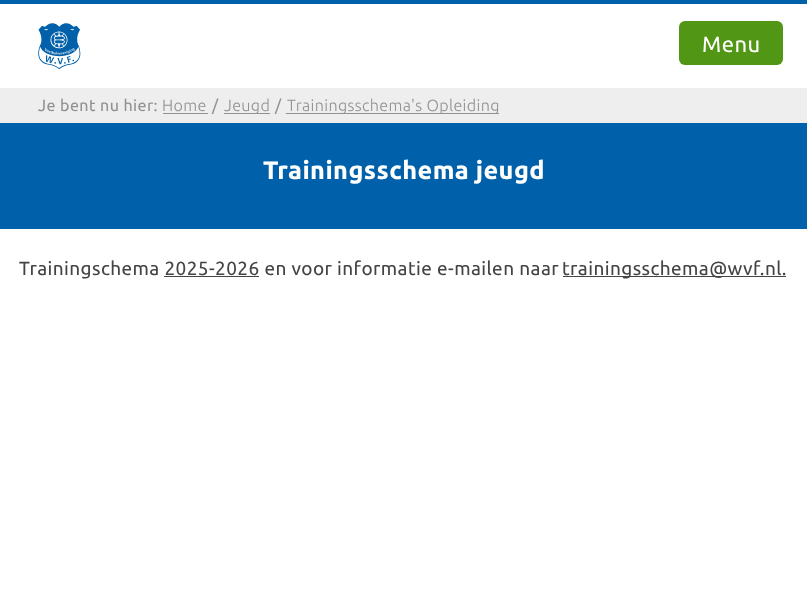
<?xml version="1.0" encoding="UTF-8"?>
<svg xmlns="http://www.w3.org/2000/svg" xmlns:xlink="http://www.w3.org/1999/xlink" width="807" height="598">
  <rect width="100%" height="100%" fill="#ffffff" />
  <rect width="807" height="4" fill="#0061aa" />
  <image x="38" y="23" width="43" height="47" xlink:href="image1.png" />
  <rect x="679" y="21" width="104" height="44" rx="6" fill="#519615" />
  <rect y="88" width="807" height="35" fill="#eeeeee" />
  <rect x="163" y="113" width="45" height="1" fill="#939192" />
  <rect x="224" y="113" width="46" height="1" fill="#939192" />
  <rect x="286" y="113" width="213" height="1" fill="#939192" />
  <rect y="123" width="807" height="106" fill="#0061aa" />
  <rect x="563" y="276" width="223" height="1" fill="#444444" />
  <rect x="164" y="276" width="95" height="1" fill="#444444" />
  <text x="702" y="52" style="font-family: Ubuntu; font-size: 22px; letter-spacing: 0.5px; fill: #ffffff">Menu</text>
  <text x="38" y="111" style="font-family: Ubuntu; font-size: 16.1px; letter-spacing: 0.42px; fill: #939192">Je bent nu hier:</text>
  <text x="162" y="111" style="font-family: Ubuntu; font-size: 16.1px; font-weight: 300; letter-spacing: 0.35px; fill: #939192">Home</text>
  <text x="212" y="111" style="font-family: Ubuntu; font-size: 16.1px; letter-spacing: 0.42px; fill: #939192">/</text>
  <text x="224" y="111" style="font-family: Ubuntu; font-size: 16.1px; font-weight: 300; letter-spacing: 0.35px; fill: #939192">Jeugd</text>
  <text x="275" y="111" style="font-family: Ubuntu; font-size: 16.1px; letter-spacing: 0.42px; fill: #939192">/</text>
  <text x="287" y="111" style="font-family: Ubuntu; font-size: 16.1px; font-weight: 300; letter-spacing: 0.35px; fill: #939192">Trainingsschema's Opleiding</text>
  <text x="263" y="179" style="font-family: Ubuntu; font-size: 25.25px; font-weight: bold; letter-spacing: 0.42px; fill: #ffffff">Trainingsschema jeugd</text>
  <text x="19" y="275" style="font-family: Ubuntu; font-size: 19px; letter-spacing: 0.42px; fill: #444444">Trainingschema 2025-2026 en voor informatie e-mailen naar</text>
  <text x="562" y="275" style="font-family: Ubuntu; font-size: 19px; letter-spacing: 0.42px; fill: #444444">trainingsschema@wvf.nl.</text>
</svg>
